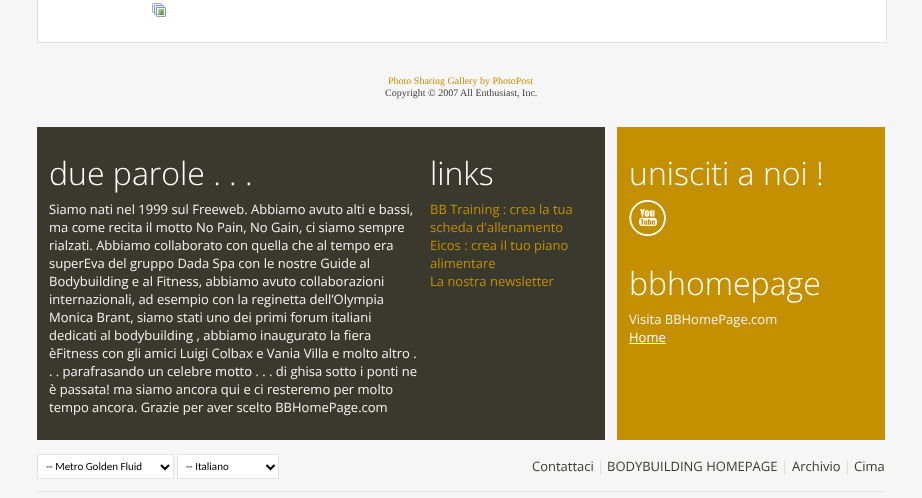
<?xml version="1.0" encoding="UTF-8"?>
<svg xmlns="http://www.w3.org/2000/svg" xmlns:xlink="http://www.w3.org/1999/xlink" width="922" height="498">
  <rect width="100%" height="100%" fill="#f6f6f6" />
  <rect x="38" width="848" height="42" fill="#ffffff" />
  <rect x="886" width="1" height="43" fill="#e4e4e4" />
  <rect x="37" y="42" width="850" height="1" fill="#e4e4e4" />
  <rect x="37" width="1" height="43" fill="#e4e4e4" />
  <image x="152" y="3" width="14" height="14" xlink:href="image1.png" />
  <rect x="37" y="127" width="568" height="313" fill="#39392e" />
  <rect x="617" y="127" width="268" height="313" fill="#c48f00" />
  <image x="629" y="200" width="37" height="36" xlink:href="image2.png" />
  <rect x="629" y="343" width="37" height="1" fill="#ffffff" />
  <rect x="37" y="491" width="848" height="1" fill="#e4e4e4" />
  <rect x="37.5" y="454.5" width="136" height="24" fill="#ffffff" stroke="#e4e4e4" />
  <path d="M 161 465 l 4 4 l 4 -4" fill="none" stroke="#000000" stroke-width="2" />
  <rect x="177.5" y="454.5" width="101" height="24" fill="#ffffff" stroke="#e4e4e4" />
  <path d="M 266.5 465 l 4 4 l 4 -4" fill="none" stroke="#000000" stroke-width="2" />
  <text x="388" y="84" style="font-family: Liberation Serif; font-size: 10px; fill: #c48f00">Photo Sharing Gallery by PhotoPost</text>
  <text x="385" y="96" style="font-family: Liberation Serif; font-size: 10px; fill: #3e3e3e">Copyright © 2007 All Enthusiast, Inc.</text>
  <text x="49" y="185" style="font-family: Open Sans; font-size: 32px; font-weight: 300; fill: #ffffff">due parole . . .</text>
  <text x="49" y="214" style="font-family: Open Sans; font-size: 13px; fill: #f2f2f2">Siamo nati nel 1999 sul Freeweb. Abbiamo avuto alti e bassi,</text>
  <text x="49" y="232" style="font-family: Open Sans; font-size: 13px; fill: #f2f2f2">ma come recita il motto No Pain, No Gain, ci siamo sempre</text>
  <text x="49" y="250" style="font-family: Open Sans; font-size: 13px; fill: #f2f2f2">rialzati. Abbiamo collaborato con quella che al tempo era</text>
  <text x="49" y="268" style="font-family: Open Sans; font-size: 13px; fill: #f2f2f2">superEva del gruppo Dada Spa con le nostre Guide al</text>
  <text x="49" y="286" style="font-family: Open Sans; font-size: 13px; fill: #f2f2f2">Bodybuilding e al Fitness, abbiamo avuto collaborazioni</text>
  <text x="49" y="304" style="font-family: Open Sans; font-size: 13px; fill: #f2f2f2">internazionali, ad esempio con la reginetta dell’Olympia</text>
  <text x="49" y="322" style="font-family: Open Sans; font-size: 13px; fill: #f2f2f2">Monica Brant, siamo stati uno dei primi forum italiani</text>
  <text x="49" y="340" style="font-family: Open Sans; font-size: 13px; fill: #f2f2f2">dedicati al bodybuilding , abbiamo inaugurato la fiera</text>
  <text x="49" y="358" style="font-family: Open Sans; font-size: 13px; fill: #f2f2f2">èFitness con gli amici Luigi Colbax e Vania Villa e molto altro .</text>
  <text x="49" y="376" style="font-family: Open Sans; font-size: 13px; fill: #f2f2f2">. . parafrasando un celebre motto . . . di ghisa sotto i ponti ne</text>
  <text x="49" y="394" style="font-family: Open Sans; font-size: 13px; fill: #f2f2f2">è passata! ma siamo ancora qui e ci resteremo per molto</text>
  <text x="49" y="412" style="font-family: Open Sans; font-size: 13px; fill: #f2f2f2">tempo ancora. Grazie per aver scelto BBHomePage.com</text>
  <text x="430" y="185" style="font-family: Open Sans; font-size: 32px; font-weight: 300; fill: #ffffff">links</text>
  <text x="430" y="214" style="font-family: Open Sans; font-size: 13px; fill: #c48f00">BB Training : crea la tua</text>
  <text x="430" y="232" style="font-family: Open Sans; font-size: 13px; fill: #c48f00">scheda d'allenamento</text>
  <text x="430" y="250" style="font-family: Open Sans; font-size: 13px; fill: #c48f00">Eicos : crea il tuo piano</text>
  <text x="430" y="268" style="font-family: Open Sans; font-size: 13px; fill: #c48f00">alimentare</text>
  <text x="430" y="286" style="font-family: Open Sans; font-size: 13px; fill: #c48f00">La nostra newsletter</text>
  <text x="629" y="185" style="font-family: Open Sans; font-size: 32px; font-weight: 300; fill: #ffffff">unisciti a noi !</text>
  <text x="629" y="295" style="font-family: Open Sans; font-size: 32px; font-weight: 300; fill: #ffffff">bbhomepage</text>
  <text x="629" y="324" style="font-family: Open Sans; font-size: 13px; fill: #f2f2f2">Visita BBHomePage.com</text>
  <text x="629" y="342" style="font-family: Open Sans; font-size: 13px; fill: #ffffff">Home</text>
  <text x="46" y="470" style="font-family: Carlito; font-size: 11px; fill: #000000">-- Metro Golden Fluid</text>
  <text x="186" y="470" style="font-family: Carlito; font-size: 11px; fill: #000000">-- Italiano</text>
  <text x="532" y="471" style="font-family: Open Sans; font-size: 13px; fill: #39392e">Contattaci</text>
  <text x="597" y="471" style="font-family: Open Sans; font-size: 13px; fill: #d8d8d8">|</text>
  <text x="607" y="471" style="font-family: Open Sans; font-size: 13px; fill: #39392e">BODYBUILDING HOMEPAGE</text>
  <text x="781" y="471" style="font-family: Open Sans; font-size: 13px; fill: #d8d8d8">|</text>
  <text x="792" y="471" style="font-family: Open Sans; font-size: 13px; fill: #39392e">Archivio</text>
  <text x="844" y="471" style="font-family: Open Sans; font-size: 13px; fill: #d8d8d8">|</text>
  <text x="854" y="471" style="font-family: Open Sans; font-size: 13px; fill: #39392e">Cima</text>
</svg>
